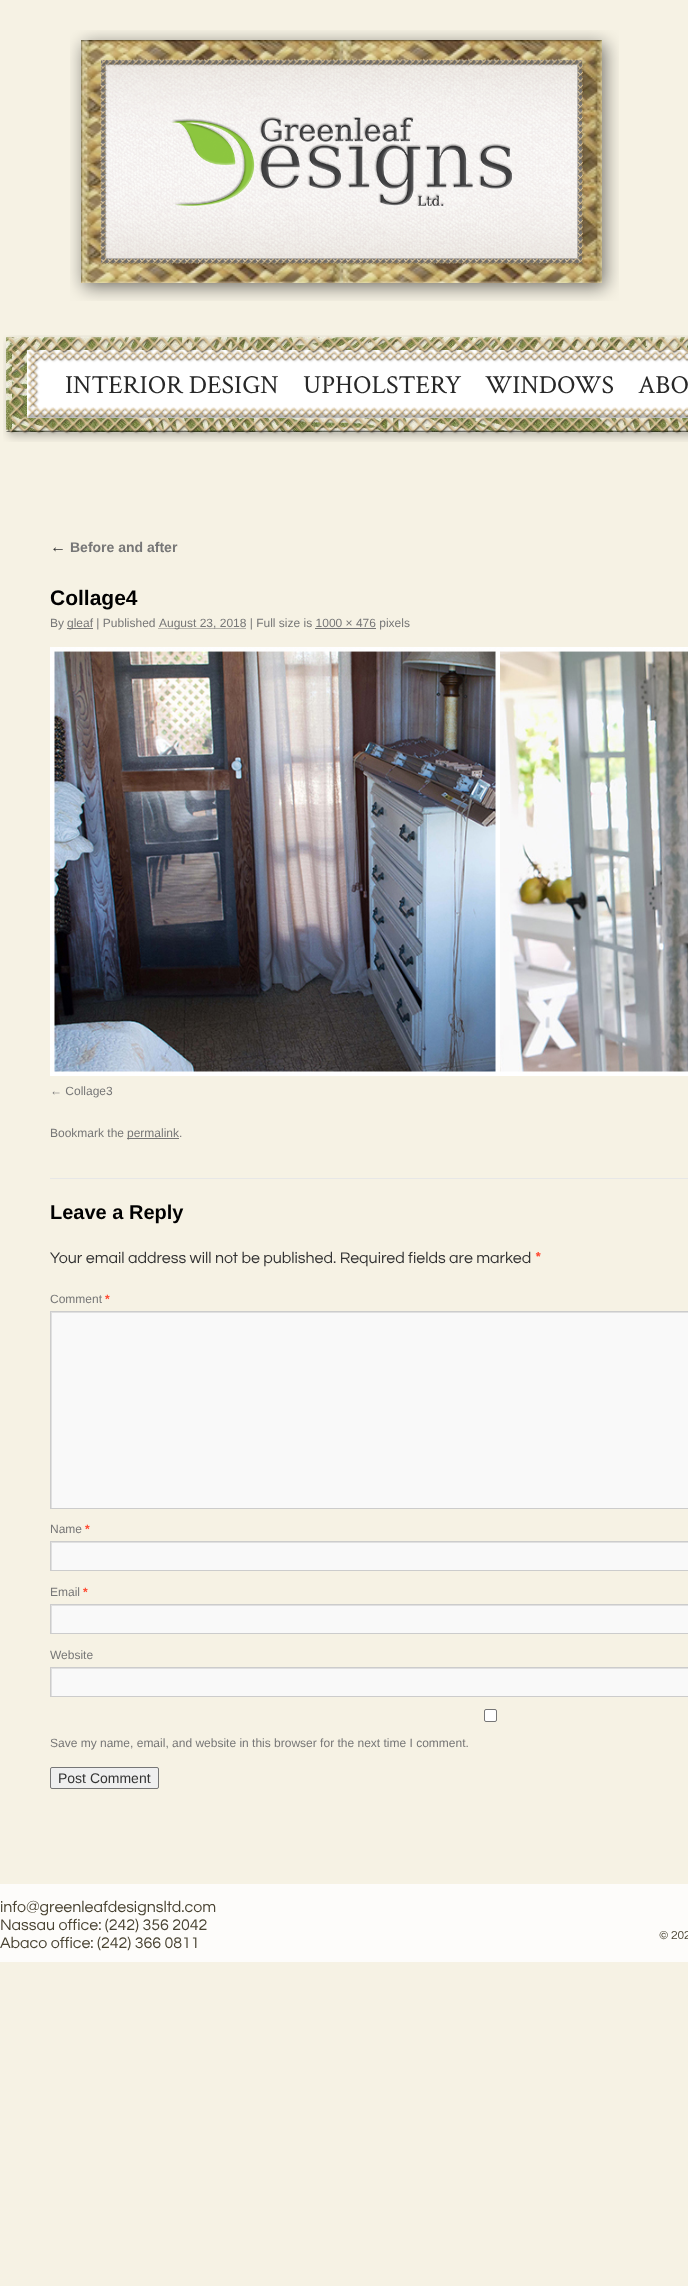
<?xml version="1.0" encoding="UTF-8"?>
<svg xmlns="http://www.w3.org/2000/svg" xmlns:xlink="http://www.w3.org/1999/xlink" width="688" height="2286">
  <defs>
    <clipPath id="clip1"><rect x="51" y="1312" width="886" height="196" /></clipPath>
    <clipPath id="clip2"><rect x="51" y="1542" width="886" height="28" /></clipPath>
    <clipPath id="clip3"><rect x="51" y="1605" width="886" height="28" /></clipPath>
    <clipPath id="clip4"><rect x="51" y="1668" width="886" height="28" /></clipPath>
  </defs>
  <rect width="100%" height="100%" fill="#f6f2e4" />
  <image x="70" y="30" width="549" height="271" xlink:href="image1.png" />
  <image x="3" y="335" width="685" height="107" xlink:href="image2.png" />
  <rect x="67" y="628" width="26" height="1" fill="#777777" />
  <path d="M 158.5 628.5 h 87.5" fill="none" stroke="#777777" stroke-dasharray="1 1" />
  <rect x="315" y="628" width="61" height="1" fill="#777777" />
  <image x="50" y="647" width="638" height="429" xlink:href="image3.png" />
  <rect x="127" y="1138" width="52" height="1" fill="#777777" />
  <rect x="50" y="1178" width="638" height="1" fill="#e7e7e7" />
  <rect x="52" y="1313" width="636" height="195" fill="#f9f9f9" />
  <g clip-path="url(#clip1)">
    <path d="M -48 1213 h 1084 v 394 h -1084 z m 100 100 h 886 v 196 h -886 z" fill="#e0e0e0" fill-rule="evenodd" />
  </g>
  <rect x="50.5" y="1311.5" width="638" height="197" fill="none" stroke="#cccccc" />
  <rect x="52" y="1543" width="636" height="27" fill="#f9f9f9" />
  <g clip-path="url(#clip2)">
    <path d="M -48 1443 h 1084 v 226 h -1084 z m 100 100 h 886 v 28 h -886 z" fill="#e0e0e0" fill-rule="evenodd" />
  </g>
  <rect x="50.5" y="1541.5" width="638" height="29" fill="none" stroke="#cccccc" />
  <rect x="52" y="1606" width="636" height="27" fill="#f9f9f9" />
  <g clip-path="url(#clip3)">
    <path d="M -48 1506 h 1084 v 226 h -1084 z m 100 100 h 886 v 28 h -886 z" fill="#e0e0e0" fill-rule="evenodd" />
  </g>
  <rect x="50.5" y="1604.5" width="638" height="29" fill="none" stroke="#cccccc" />
  <rect x="52" y="1669" width="636" height="27" fill="#f9f9f9" />
  <g clip-path="url(#clip4)">
    <path d="M -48 1569 h 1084 v 226 h -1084 z m 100 100 h 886 v 28 h -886 z" fill="#e0e0e0" fill-rule="evenodd" />
  </g>
  <rect x="50.5" y="1667.5" width="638" height="29" fill="none" stroke="#cccccc" />
  <rect x="484.5" y="1709.5" width="12" height="12" rx="1.5" fill="#ffffff" stroke="#767676" />
  <rect x="50.5" y="1767.5" width="108" height="21" rx="1.5" fill="#efefef" stroke="#767676" />
  <rect y="1884" width="688" height="78" fill="#fdfcfa" />
  <text x="65" y="393" style="font-family: Crimson Text; font-size: 26px; fill: #282828">INTERIOR DESIGN</text>
  <text x="303" y="393" style="font-family: Crimson Text; font-size: 26px; fill: #282828">UPHOLSTERY</text>
  <text x="485" y="393" style="font-family: Crimson Text; font-size: 26px; fill: #282828">WINDOWS</text>
  <text x="638" y="393" style="font-family: Crimson Text; font-size: 26px; fill: #282828">ABO</text>
  <text x="50" y="552" style="font-family: Liberation Serif; font-size: 16px; font-style: italic; fill: #333333">←</text>
  <text x="70" y="552" style="font-family: Liberation Sans; font-size: 14px; font-weight: bold; fill: #777777">Before and after</text>
  <text x="50" y="605" style="font-family: Liberation Sans; font-size: 21px; font-weight: bold; fill: #000000">Collage4</text>
  <text x="50" y="627" style="font-family: Liberation Sans; font-size: 12px; fill: #777777">By</text>
  <text x="67" y="627" style="font-family: Liberation Sans; font-size: 12px; fill: #777777">gleaf | Published</text>
  <text x="159" y="627" style="font-family: Liberation Sans; font-size: 12px; fill: #777777">August 23, 2018 | Full size is 1000 × 476 pixels</text>
  <text x="50" y="1095" style="font-family: Liberation Sans; font-size: 12px; fill: #777777">← Collage3</text>
  <text x="50" y="1137" style="font-family: Liberation Sans; font-size: 12px; fill: #777777">Bookmark the</text>
  <text x="127" y="1137" style="font-family: Liberation Sans; font-size: 12px; fill: #777777">permalink.</text>
  <text x="50" y="1219" style="font-family: Liberation Sans; font-size: 20px; font-weight: bold; fill: #000000">Leave a Reply</text>
  <text x="50" y="1263" style="font-family: Questrial; font-size: 16px; fill: #333333">Your email address will not be published. Required fields are marked</text>
  <text x="535" y="1263" style="font-family: Questrial; font-size: 16px; font-weight: bold; fill: #ff4b33">*</text>
  <text x="50" y="1303" style="font-family: Liberation Sans; font-size: 12px; fill: #777777">Comment</text>
  <text x="105" y="1303" style="font-family: Liberation Sans; font-size: 12px; font-weight: bold; fill: #ff4b33">*</text>
  <text x="50" y="1533" style="font-family: Liberation Sans; font-size: 12px; fill: #777777">Name</text>
  <text x="85" y="1533" style="font-family: Liberation Sans; font-size: 12px; font-weight: bold; fill: #ff4b33">*</text>
  <text x="50" y="1596" style="font-family: Liberation Sans; font-size: 12px; fill: #777777">Email</text>
  <text x="83" y="1596" style="font-family: Liberation Sans; font-size: 12px; font-weight: bold; fill: #ff4b33">*</text>
  <text x="50" y="1659" style="font-family: Liberation Sans; font-size: 12px; fill: #777777">Website</text>
  <text x="50" y="1747" style="font-family: Liberation Sans; font-size: 12px; fill: #777777">Save my name, email, and website in this browser for the next time I comment.</text>
  <text x="58" y="1783" style="font-family: Liberation Sans; font-size: 14px; fill: #333333">Post Comment</text>
  <text x="0" y="1912" style="font-family: Questrial; font-size: 16px; fill: #4a4433">info@greenleafdesignsltd.com</text>
  <text x="0" y="1930" style="font-family: Questrial; font-size: 16px; fill: #4a4433">Nassau office: (242) 356 2042</text>
  <text x="0" y="1948" style="font-family: Questrial; font-size: 16px; fill: #4a4433">Abaco office: (242) 366 0811</text>
  <text x="659" y="1939" style="font-family: Questrial; font-size: 12px; fill: #4a4433">© 202</text>
</svg>
